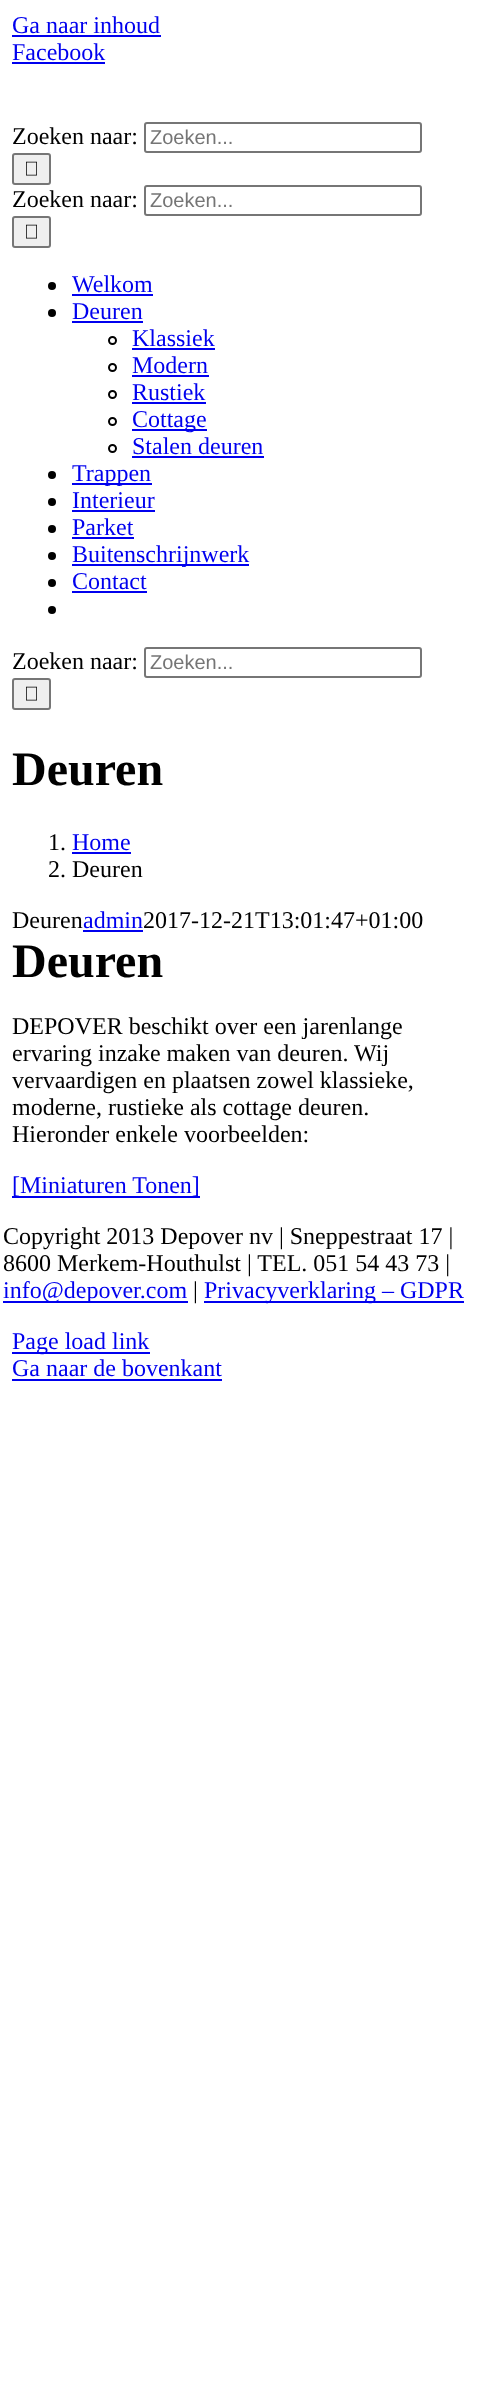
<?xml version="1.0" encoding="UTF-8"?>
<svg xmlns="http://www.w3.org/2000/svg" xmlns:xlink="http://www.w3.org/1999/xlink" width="478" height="2390">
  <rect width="100%" height="100%" fill="#ffffff" />
  <rect x="12" y="35" width="149" height="2" fill="#0000ee" />
  <rect x="12" y="62" width="93" height="2" fill="#0000ee" />
  <rect x="145" y="123" width="276" height="29" rx="2" fill="none" stroke="#767676" stroke-width="2" />
  <rect x="13" y="154" width="37" height="30" rx="2" fill="#efefef" stroke="#767676" stroke-width="2" />
  <image x="26" y="161" width="11" height="15" xlink:href="image1.png" />
  <rect x="145" y="186" width="276" height="29" rx="2" fill="none" stroke="#767676" stroke-width="2" />
  <rect x="13" y="217" width="37" height="30" rx="2" fill="#efefef" stroke="#767676" stroke-width="2" />
  <image x="26" y="224" width="11" height="15" xlink:href="image1.png" />
  <circle cx="52" cy="286" r="4" fill="#000000" />
  <rect x="72" y="294" width="81" height="2" fill="#0000ee" />
  <circle cx="52" cy="313" r="4" fill="#000000" />
  <rect x="72" y="321" width="71" height="2" fill="#0000ee" />
  <circle cx="112.5" cy="340.5" r="3.5" fill="none" stroke="#000000" stroke-width="2" />
  <rect x="132" y="348" width="83" height="2" fill="#0000ee" />
  <circle cx="112.5" cy="367.5" r="3.5" fill="none" stroke="#000000" stroke-width="2" />
  <rect x="132" y="375" width="77" height="2" fill="#0000ee" />
  <circle cx="112.5" cy="394.5" r="3.5" fill="none" stroke="#000000" stroke-width="2" />
  <rect x="132" y="402" width="74" height="2" fill="#0000ee" />
  <circle cx="112.5" cy="421.5" r="3.5" fill="none" stroke="#000000" stroke-width="2" />
  <rect x="132" y="429" width="75" height="2" fill="#0000ee" />
  <circle cx="112.5" cy="448.5" r="3.5" fill="none" stroke="#000000" stroke-width="2" />
  <rect x="132" y="456" width="132" height="2" fill="#0000ee" />
  <circle cx="52" cy="475" r="4" fill="#000000" />
  <rect x="72" y="483" width="80" height="2" fill="#0000ee" />
  <circle cx="52" cy="502" r="4" fill="#000000" />
  <rect x="72" y="510" width="83" height="2" fill="#0000ee" />
  <circle cx="52" cy="529" r="4" fill="#000000" />
  <rect x="72" y="537" width="62" height="2" fill="#0000ee" />
  <circle cx="52" cy="556" r="4" fill="#000000" />
  <rect x="72" y="564" width="177" height="2" fill="#0000ee" />
  <circle cx="52" cy="583" r="4" fill="#000000" />
  <rect x="72" y="591" width="75" height="2" fill="#0000ee" />
  <circle cx="52" cy="610" r="4" fill="#000000" />
  <rect x="145" y="648" width="276" height="29" rx="2" fill="none" stroke="#767676" stroke-width="2" />
  <rect x="13" y="679" width="37" height="30" rx="2" fill="#efefef" stroke="#767676" stroke-width="2" />
  <image x="26" y="686" width="11" height="15" xlink:href="image1.png" />
  <rect x="72" y="852" width="59" height="2" fill="#0000ee" />
  <rect x="83" y="930" width="60" height="2" fill="#0000ee" />
  <rect x="12" y="1196" width="188" height="2" fill="#0000ee" />
  <rect x="3" y="1301" width="185" height="2" fill="#0000ee" />
  <rect x="204" y="1301" width="260" height="2" fill="#0000ee" />
  <rect x="12" y="1352" width="138" height="2" fill="#0000ee" />
  <rect x="12" y="1379" width="210" height="2" fill="#0000ee" />
  <text x="12" y="33" style="font-family: Liberation Serif; font-size: 24px; fill: #0000ee">Ga naar inhoud</text>
  <text x="12" y="60" style="font-family: Liberation Serif; font-size: 24px; fill: #0000ee">Facebook</text>
  <text x="12" y="144" style="font-family: Liberation Serif; font-size: 24px; fill: #000000">Zoeken naar:</text>
  <text x="150" y="144" style="font-family: Liberation Sans; font-size: 20px; fill: #757575">Zoeken...</text>
  <text x="12" y="207" style="font-family: Liberation Serif; font-size: 24px; fill: #000000">Zoeken naar:</text>
  <text x="150" y="207" style="font-family: Liberation Sans; font-size: 20px; fill: #757575">Zoeken...</text>
  <text x="72" y="292" style="font-family: Liberation Serif; font-size: 24px; fill: #0000ee">Welkom</text>
  <text x="72" y="319" style="font-family: Liberation Serif; font-size: 24px; fill: #0000ee">Deuren</text>
  <text x="132" y="346" style="font-family: Liberation Serif; font-size: 24px; fill: #0000ee">Klassiek</text>
  <text x="132" y="373" style="font-family: Liberation Serif; font-size: 24px; fill: #0000ee">Modern</text>
  <text x="132" y="400" style="font-family: Liberation Serif; font-size: 24px; fill: #0000ee">Rustiek</text>
  <text x="132" y="427" style="font-family: Liberation Serif; font-size: 24px; fill: #0000ee">Cottage</text>
  <text x="132" y="454" style="font-family: Liberation Serif; font-size: 24px; fill: #0000ee">Stalen deuren</text>
  <text x="72" y="481" style="font-family: Liberation Serif; font-size: 24px; fill: #0000ee">Trappen</text>
  <text x="72" y="508" style="font-family: Liberation Serif; font-size: 24px; fill: #0000ee">Interieur</text>
  <text x="72" y="535" style="font-family: Liberation Serif; font-size: 24px; fill: #0000ee">Parket</text>
  <text x="72" y="562" style="font-family: Liberation Serif; font-size: 24px; fill: #0000ee">Buitenschrijnwerk</text>
  <text x="72" y="589" style="font-family: Liberation Serif; font-size: 24px; fill: #0000ee">Contact</text>
  <text x="12" y="669" style="font-family: Liberation Serif; font-size: 24px; fill: #000000">Zoeken naar:</text>
  <text x="150" y="669" style="font-family: Liberation Sans; font-size: 20px; fill: #757575">Zoeken...</text>
  <text x="12" y="785" style="font-family: Liberation Serif; font-size: 48px; font-weight: bold; fill: #000000">Deuren</text>
  <text x="48" y="850" style="font-family: Liberation Serif; font-size: 24px; fill: #000000">1.</text>
  <text x="72" y="850" style="font-family: Liberation Serif; font-size: 24px; fill: #0000ee">Home</text>
  <text x="48" y="877" style="font-family: Liberation Serif; font-size: 24px; fill: #000000">2. Deuren</text>
  <text x="12" y="928" style="font-family: Liberation Serif; font-size: 24px; fill: #000000">Deuren</text>
  <text x="83" y="928" style="font-family: Liberation Serif; font-size: 24px; fill: #0000ee">admin</text>
  <text x="143" y="928" style="font-family: Liberation Serif; font-size: 24px; fill: #000000">2017-12-21T13:01:47+01:00</text>
  <text x="12" y="977" style="font-family: Liberation Serif; font-size: 48px; font-weight: bold; fill: #000000">Deuren</text>
  <text x="12" y="1034" style="font-family: Liberation Serif; font-size: 24px; fill: #000000">DEPOVER beschikt over een jarenlange</text>
  <text x="12" y="1061" style="font-family: Liberation Serif; font-size: 24px; fill: #000000">ervaring inzake maken van deuren. Wij</text>
  <text x="12" y="1088" style="font-family: Liberation Serif; font-size: 24px; fill: #000000">vervaardigen en plaatsen zowel klassieke,</text>
  <text x="12" y="1115" style="font-family: Liberation Serif; font-size: 24px; fill: #000000">moderne, rustieke als cottage deuren.</text>
  <text x="12" y="1142" style="font-family: Liberation Serif; font-size: 24px; fill: #000000">Hieronder enkele voorbeelden:</text>
  <text x="12" y="1193" style="font-family: Liberation Serif; font-size: 24px; fill: #0000ee">[Miniaturen Tonen]</text>
  <text x="3" y="1244" style="font-family: Liberation Serif; font-size: 24px; fill: #000000">Copyright 2013 Depover nv | Sneppestraat 17 |</text>
  <text x="3" y="1271" style="font-family: Liberation Serif; font-size: 24px; fill: #000000">8600 Merkem-Houthulst | TEL. 051 54 43 73 |</text>
  <text x="3" y="1298" style="font-family: Liberation Serif; font-size: 24px; fill: #0000ee">info@depover.com</text>
  <text x="193" y="1298" style="font-family: Liberation Serif; font-size: 24px; fill: #000000">|</text>
  <text x="204" y="1298" style="font-family: Liberation Serif; font-size: 24px; fill: #0000ee">Privacyverklaring – GDPR</text>
  <text x="12" y="1349" style="font-family: Liberation Serif; font-size: 24px; fill: #0000ee">Page load link</text>
  <text x="12" y="1376" style="font-family: Liberation Serif; font-size: 24px; fill: #0000ee">Ga naar de bovenkant</text>
</svg>
